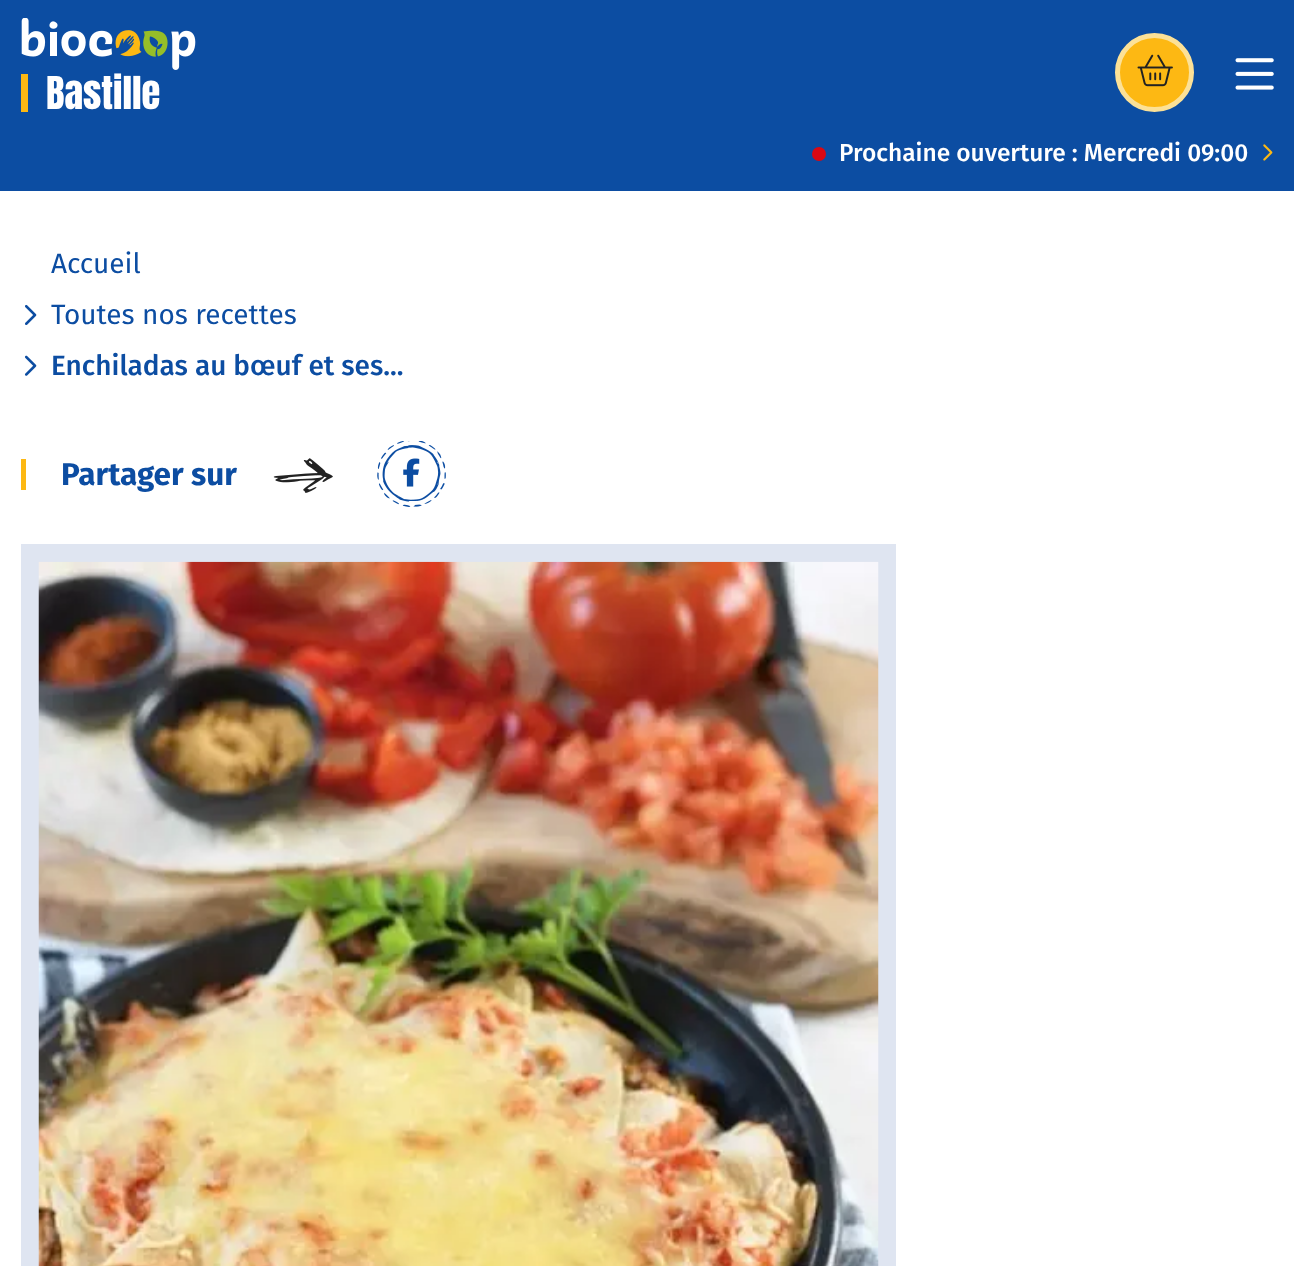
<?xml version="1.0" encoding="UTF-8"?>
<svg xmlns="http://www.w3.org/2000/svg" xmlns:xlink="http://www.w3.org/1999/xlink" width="1294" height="1266">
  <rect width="100%" height="100%" fill="#ffffff" />
  <rect width="1294" height="191" fill="#0c4da2" />
  <image x="21" y="18" width="175" height="52" xlink:href="image1.png" />
  <rect x="21" y="74" width="7" height="38" fill="#fdb813" />
  <circle cx="1154.5" cy="72.5" r="37" fill="#fdb813" stroke="#fce197" stroke-width="5" />
  <image x="1137" y="54" width="36" height="33" xlink:href="image2.png" />
  <image x="1235" y="58" width="39" height="32" xlink:href="image3.png" />
  <circle cx="819" cy="154" r="7" fill="#da0812" />
  <image x="1263" y="144" width="10" height="17" xlink:href="image4.png" />
  <image x="25" y="304" width="12" height="21" xlink:href="image5.png" />
  <image x="24" y="355" width="13" height="21" xlink:href="image6.png" />
  <rect x="21" y="459" width="5" height="31" fill="#fdb813" />
  <image x="273" y="458" width="60" height="35" xlink:href="image7.png" />
  <image x="377" y="441" width="69" height="66" xlink:href="image8.png" />
  <image x="403" y="458" width="17" height="29" xlink:href="image9.png" />
  <rect x="30" y="553" width="857" height="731" fill="none" stroke="#dfe5f1" stroke-width="18" />
  <image x="38" y="561" width="841" height="705" xlink:href="image10.png" />
  <text x="46" y="109" style="font-family: Anton; font-size: 38.5px; fill: #ffffff">Bastille</text>
  <text x="839" y="161" style="font-family: Fira Sans; font-size: 24.5px; font-weight: 500; fill: #ffffff">Prochaine ouverture : Mercredi 09:00</text>
  <text x="51" y="273" style="font-family: Fira Sans; font-size: 28px; fill: #0c4da2">Accueil</text>
  <text x="51" y="324" style="font-family: Fira Sans; font-size: 28px; fill: #0c4da2">Toutes nos recettes</text>
  <text x="51" y="375" style="font-family: Fira Sans; font-size: 28px; font-weight: 500; fill: #0c4da2">Enchiladas au bœuf et ses...</text>
  <text x="61" y="485" style="font-family: Fira Sans; font-size: 31.5px; font-weight: bold; fill: #0c4da2">Partager sur</text>
</svg>
